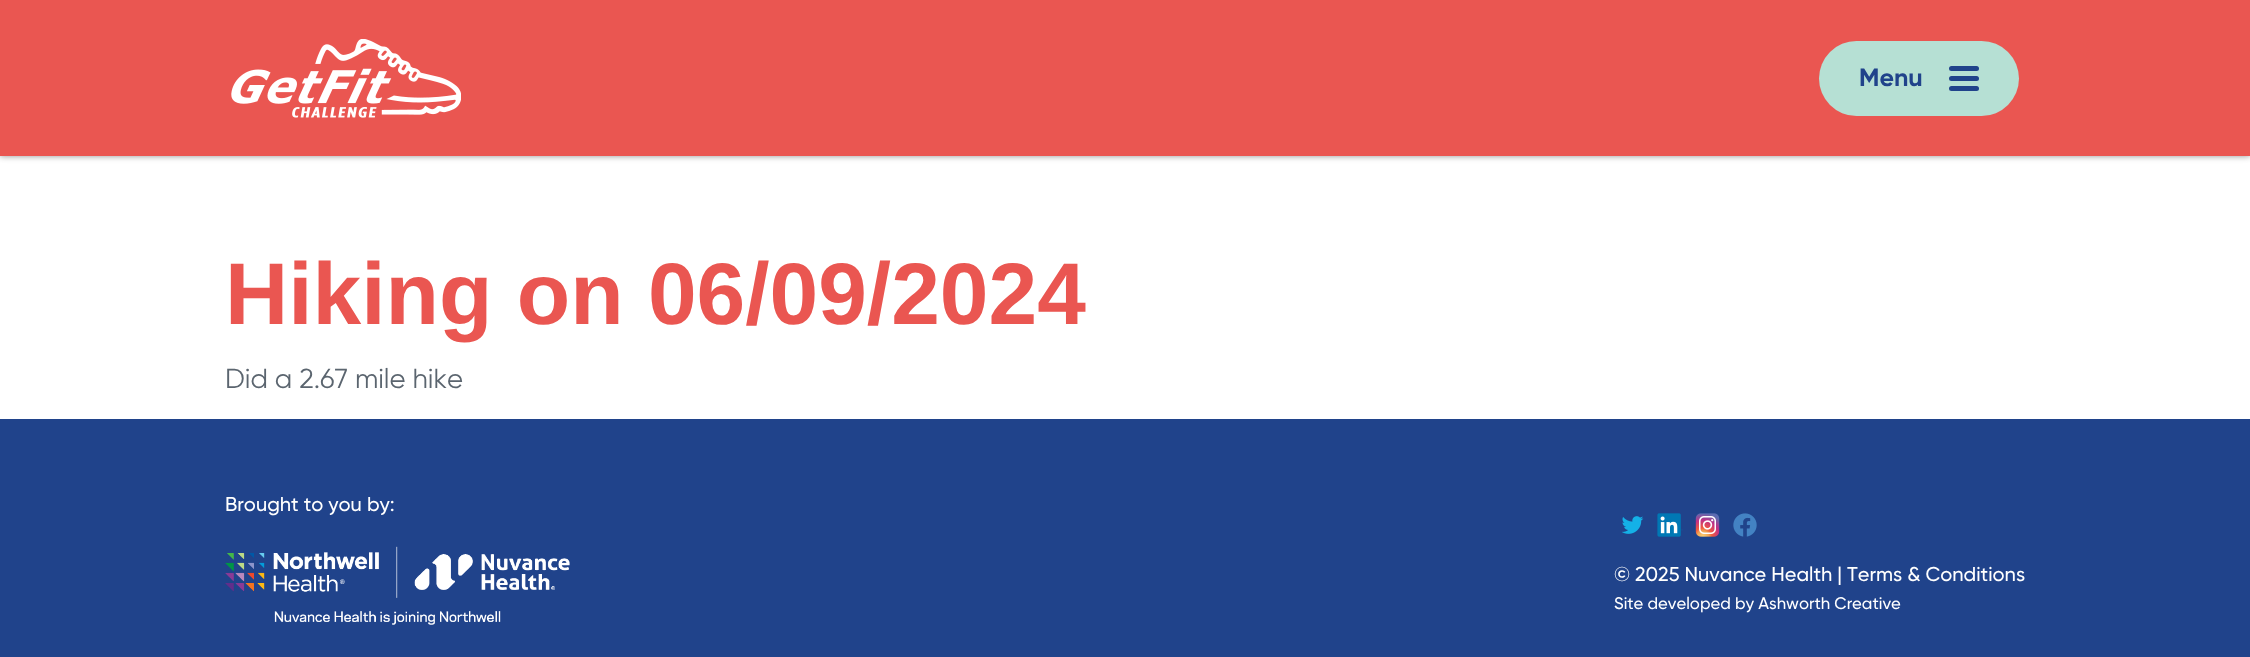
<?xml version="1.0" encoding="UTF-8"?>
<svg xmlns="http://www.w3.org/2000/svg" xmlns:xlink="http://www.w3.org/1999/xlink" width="2250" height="657">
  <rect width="100%" height="100%" fill="#ffffff" />
  <rect width="2250" height="156" fill="#231f20" fill-opacity="0.5" filter="blur(3px)" />
  <rect width="2250" height="156" fill="#ea5651" />
  <image x="231" y="39" width="230" height="79" xlink:href="image1.png" />
  <rect x="1819" y="41" width="200" height="75" rx="37.5" fill="#b6e0d4" />
  <rect x="1949" y="76" width="30" height="5" rx="2.5" fill="#20438b" />
  <rect x="1949" y="66" width="30" height="5" rx="2.5" fill="#20438b" />
  <rect x="1949" y="86" width="30" height="5" rx="2.5" fill="#20438b" />
  <rect y="419" width="2250" height="238" fill="#20438b" />
  <image x="225" y="546" width="345" height="79" xlink:href="image2.png" />
  <image x="1622" y="516" width="22" height="18" xlink:href="image3.png" />
  <image x="1657" y="513" width="26" height="24" xlink:href="image4.png" />
  <image x="1695" y="513" width="25" height="24" xlink:href="image5.png" />
  <image x="1733" y="513" width="24" height="24" xlink:href="image6.png" />
  <text x="1859" y="86" style="font-family: 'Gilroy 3'; font-size: 25px; fill: #20438b">Menu</text>
  <text x="225" y="324" style="font-family: Liberation Sans; font-size: 87.5px; font-weight: bold; fill: #ea5651">Hiking on 06/09/2024</text>
  <text x="225" y="388" style="font-family: Gilroy; font-size: 27.5px; fill: #5b656f">Did a 2.67 mile hike</text>
  <text x="225" y="511" style="font-family: 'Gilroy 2'; font-size: 20px; fill: #ffffff">Brought to you by:</text>
  <text x="1614" y="581" style="font-family: 'Gilroy 2'; font-size: 20px; fill: #ffffff">© 2025 Nuvance Health | Terms &amp; Conditions</text>
  <text x="1614" y="609" style="font-family: 'Gilroy 2'; font-size: 16.7px; fill: #ffffff">Site developed by Ashworth Creative</text>
</svg>
